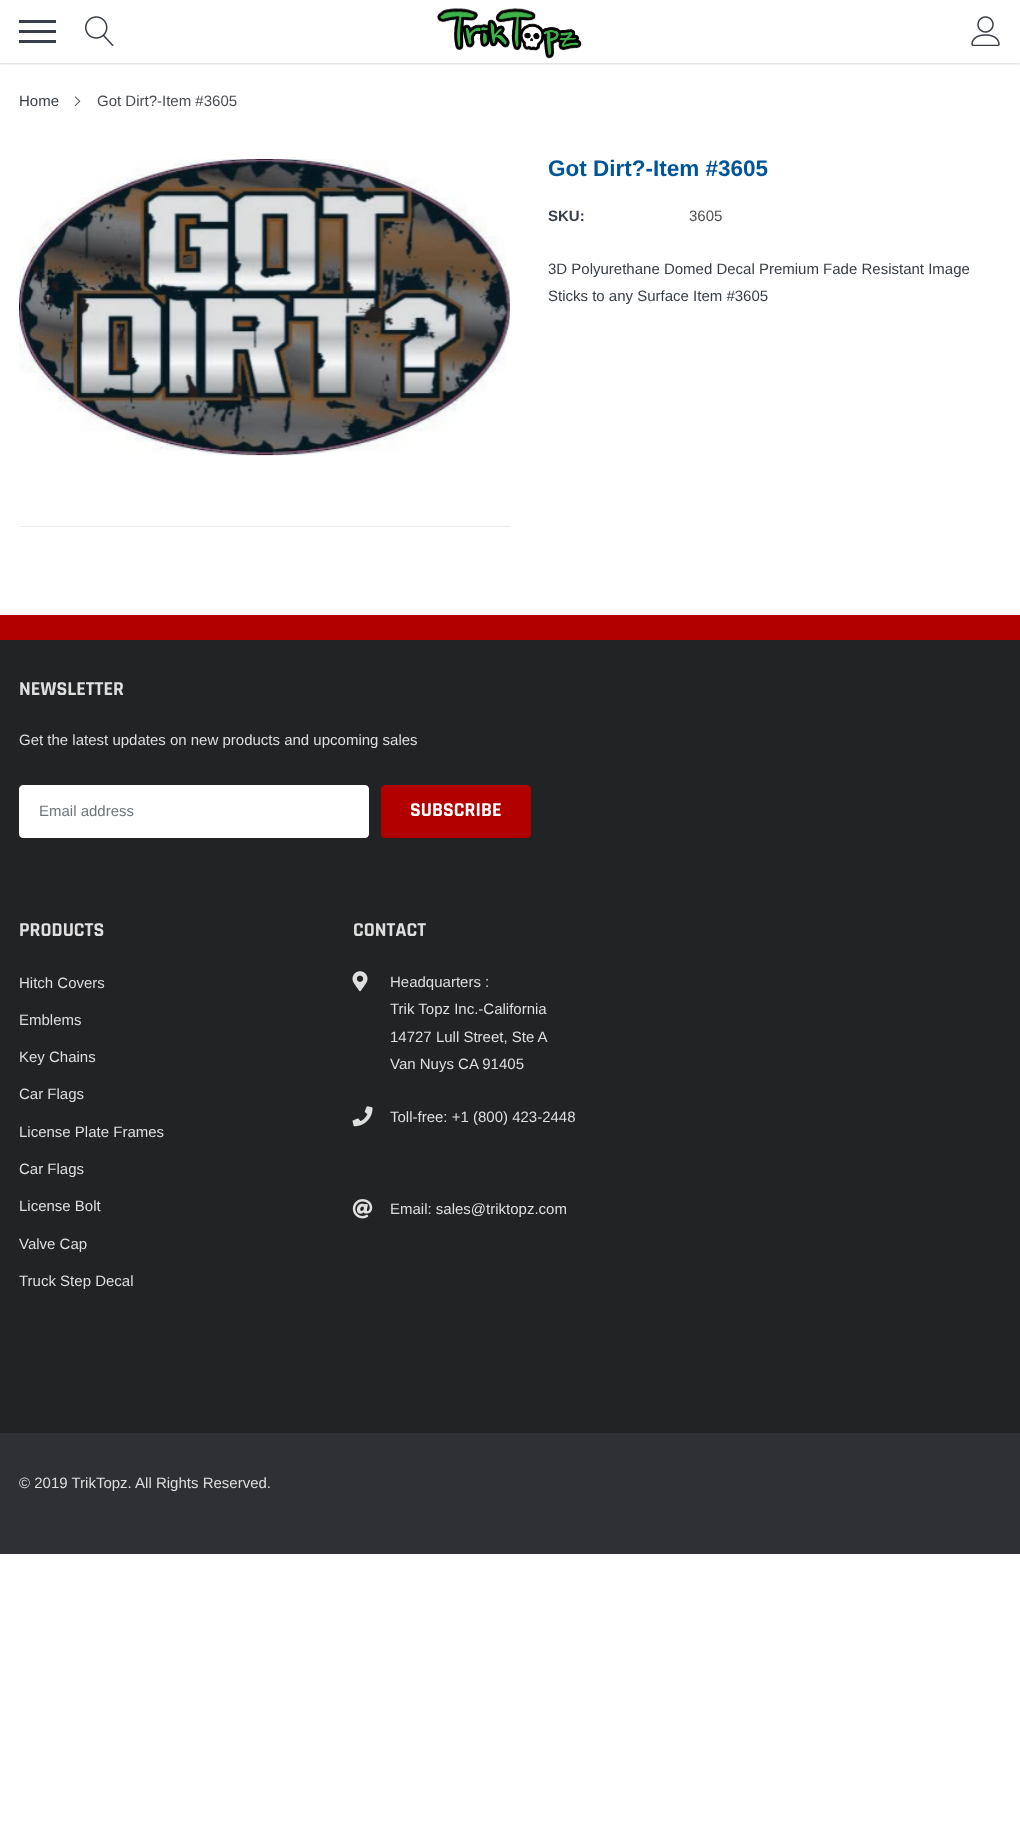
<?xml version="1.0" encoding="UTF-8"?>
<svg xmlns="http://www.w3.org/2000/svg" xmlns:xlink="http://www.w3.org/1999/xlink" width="1020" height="1822">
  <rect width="100%" height="100%" fill="#ffffff" />
  <rect y="1" width="1020" height="63" fill="#000000" fill-opacity="0.15" filter="blur(1px)" />
  <rect width="1020" height="63" fill="#ffffff" />
  <rect x="19" y="30" width="37" height="3" fill="#383e47" />
  <rect x="19" y="20" width="37" height="3" fill="#383e47" />
  <rect x="19" y="40" width="37" height="3" fill="#383e47" />
  <image x="85" y="16" width="29" height="30" xlink:href="image1.png" />
  <image x="437" y="8" width="145" height="51" xlink:href="image2.png" />
  <image x="971" y="16" width="29" height="30" xlink:href="image3.png" />
  <image x="74" y="96" width="7" height="10" xlink:href="image4.png" />
  <image x="19" y="159" width="491" height="297" xlink:href="image5.png" />
  <rect x="19" y="526" width="491" height="1" fill="#eeeeee" />
  <rect y="615" width="1020" height="25" fill="#b20000" />
  <rect y="640" width="1020" height="793" fill="#222325" />
  <rect x="19.5" y="785.5" width="349" height="52" rx="3.5" fill="#ffffff" stroke="#ffffff" />
  <rect x="381.5" y="785.5" width="149" height="52" rx="3.5" fill="#b20000" stroke="#b20000" />
  <image x="352" y="971" width="16" height="21" xlink:href="image6.png" />
  <image x="352" y="1106" width="21" height="21" xlink:href="image7.png" />
  <image x="352" y="1199" width="21" height="20" xlink:href="image8.png" />
  <rect y="1433" width="1020" height="121" fill="#2e3033" />
  <text x="19" y="106" style="font-family: Arimo; font-size: 15px; fill: #383e47">Home</text>
  <text x="97" y="106" style="font-family: Arimo; font-size: 15px; fill: #484b51">Got Dirt?-Item #3605</text>
  <text x="548" y="176" style="font-family: Arimo; font-size: 22.5px; font-weight: bold; fill: #005599">Got Dirt?-Item #3605</text>
  <text x="548" y="221" style="font-family: Arimo; font-size: 15px; font-weight: bold; fill: #383e47">SKU:</text>
  <text x="689" y="221" style="font-family: Arimo; font-size: 15px; fill: #505050">3605</text>
  <text x="548" y="274" style="font-family: Arimo; font-size: 15px; fill: #383e47">3D Polyurethane Domed Decal Premium Fade Resistant Image</text>
  <text x="548" y="301" style="font-family: Arimo; font-size: 15px; fill: #383e47">Sticks to any Surface Item #3605</text>
  <text x="19" y="695" style="font-family: Rajdhani; font-size: 20px; font-weight: bold; fill: #dfdfdf">NEWSLETTER</text>
  <text x="19" y="745" style="font-family: Arimo; font-size: 15px; fill: #dfdfdf">Get the latest updates on new products and upcoming sales</text>
  <text x="39" y="816" style="font-family: Arimo; font-size: 15px; fill: #6c757d">Email address</text>
  <text x="410" y="816" style="font-family: Rajdhani; font-size: 20px; font-weight: bold; fill: #ffffff">SUBSCRIBE</text>
  <text x="19" y="936" style="font-family: Rajdhani; font-size: 20px; font-weight: bold; fill: #dfdfdf">PRODUCTS</text>
  <text x="19" y="988" style="font-family: Arimo; font-size: 15px; fill: #dfdfdf">Hitch Covers</text>
  <text x="19" y="1025" style="font-family: Arimo; font-size: 15px; fill: #dfdfdf">Emblems</text>
  <text x="19" y="1062" style="font-family: Arimo; font-size: 15px; fill: #dfdfdf">Key Chains</text>
  <text x="19" y="1099" style="font-family: Arimo; font-size: 15px; fill: #dfdfdf">Car Flags</text>
  <text x="19" y="1137" style="font-family: Arimo; font-size: 15px; fill: #dfdfdf">License Plate Frames</text>
  <text x="19" y="1174" style="font-family: Arimo; font-size: 15px; fill: #dfdfdf">Car Flags</text>
  <text x="19" y="1211" style="font-family: Arimo; font-size: 15px; fill: #dfdfdf">License Bolt</text>
  <text x="19" y="1249" style="font-family: Arimo; font-size: 15px; fill: #dfdfdf">Valve Cap</text>
  <text x="19" y="1286" style="font-family: Arimo; font-size: 15px; fill: #dfdfdf">Truck Step Decal</text>
  <text x="353" y="936" style="font-family: Rajdhani; font-size: 20px; font-weight: bold; fill: #dfdfdf">CONTACT</text>
  <text x="390" y="987" style="font-family: Arimo; font-size: 15px; fill: #dfdfdf">Headquarters :</text>
  <text x="390" y="1014" style="font-family: Arimo; font-size: 15px; fill: #dfdfdf">Trik Topz Inc.-California</text>
  <text x="390" y="1042" style="font-family: Arimo; font-size: 15px; fill: #dfdfdf">14727 Lull Street, Ste A</text>
  <text x="390" y="1069" style="font-family: Arimo; font-size: 15px; fill: #dfdfdf">Van Nuys CA 91405</text>
  <text x="390" y="1122" style="font-family: Arimo; font-size: 15px; fill: #dfdfdf">Toll-free: +1 (800) 423-2448</text>
  <text x="390" y="1214" style="font-family: Arimo; font-size: 15px; fill: #dfdfdf">Email: sales@triktopz.com</text>
  <text x="19" y="1488" style="font-family: Arimo; font-size: 15px; fill: #dfdfdf">© 2019 TrikTopz. All Rights Reserved.</text>
</svg>
